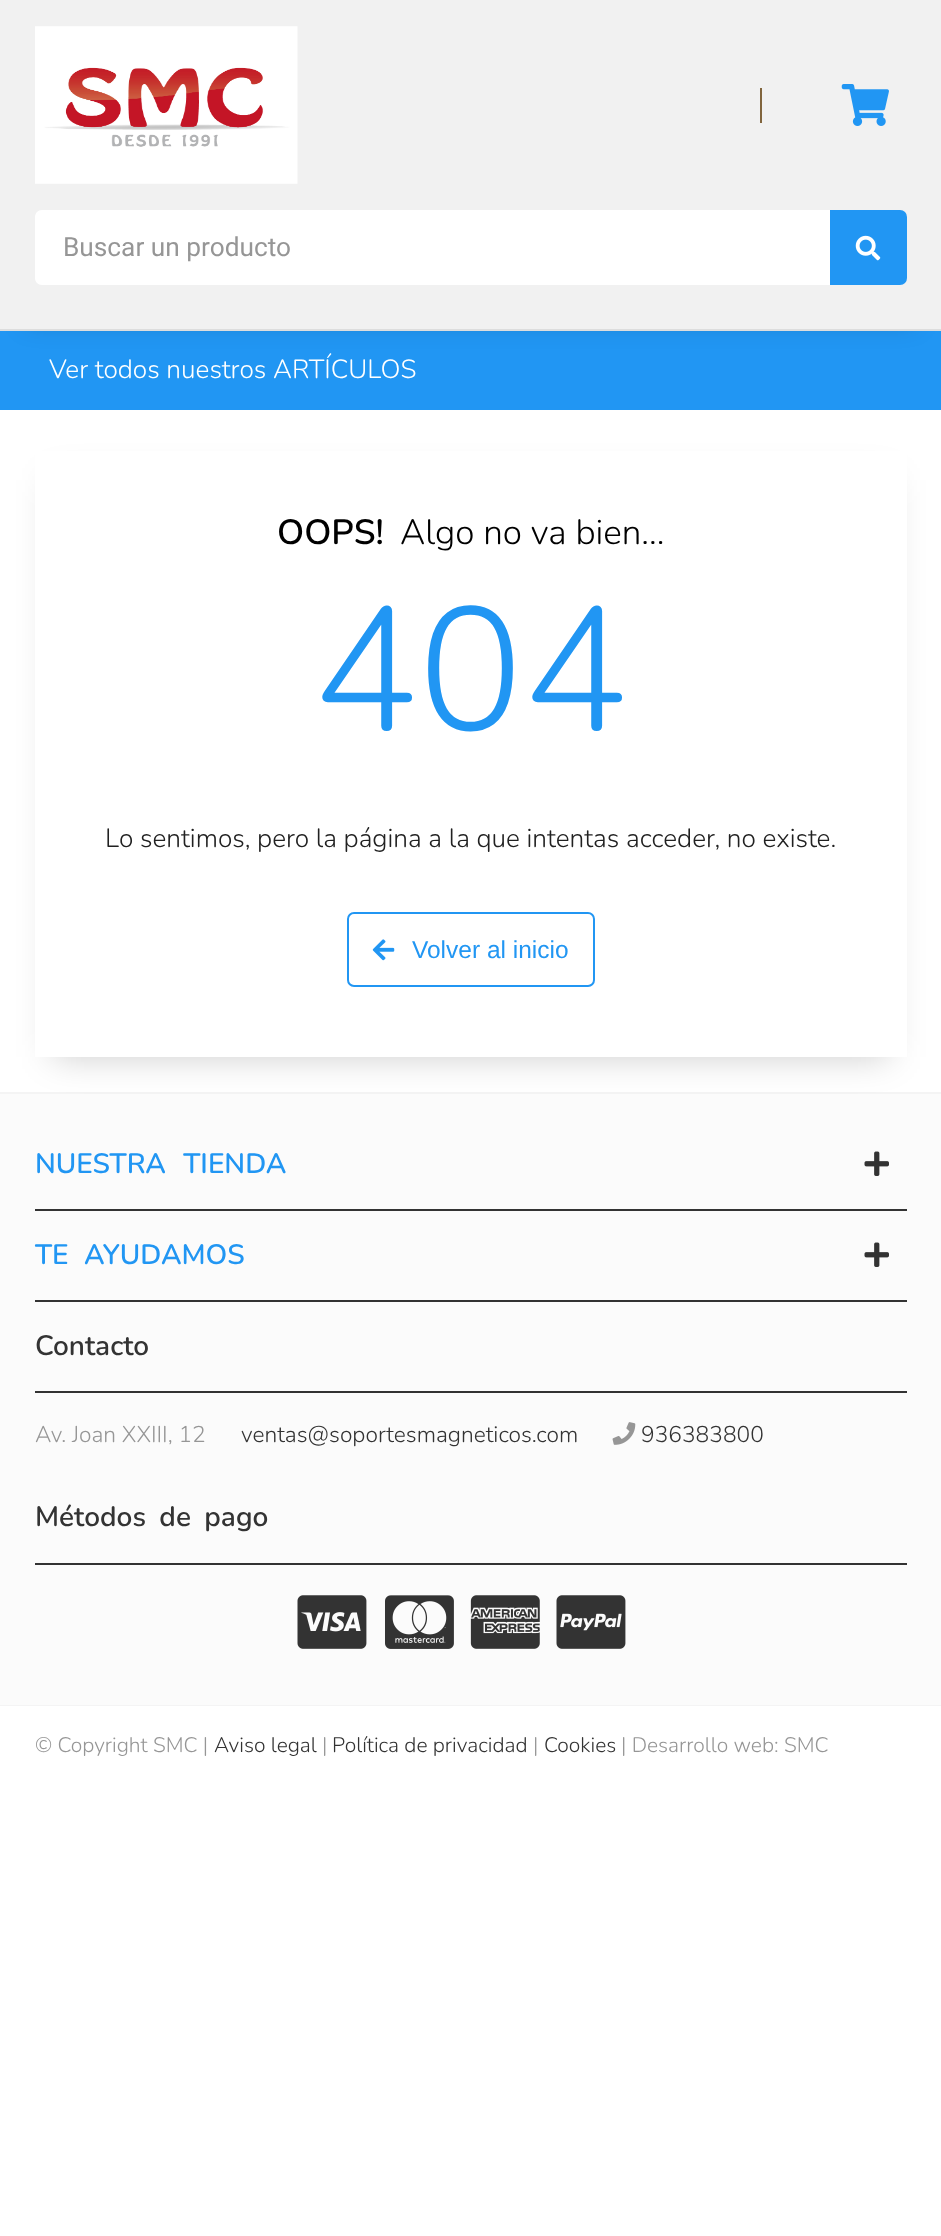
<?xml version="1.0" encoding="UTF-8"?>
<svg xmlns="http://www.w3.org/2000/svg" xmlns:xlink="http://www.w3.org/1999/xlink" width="941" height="2236">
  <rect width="100%" height="100%" fill="#ffffff" />
  <rect width="941" height="210" fill="#f1f1f1" />
  <image x="35" y="26" width="263" height="158" xlink:href="image1.png" />
  <rect x="760" y="88" width="2" height="35" fill="#81653d" />
  <image x="841" y="84" width="48" height="42" xlink:href="image2.png" />
  <rect y="331" width="941" height="79" fill="#2196f3" />
  <rect x="26" y="254" width="889" height="68" fill="#000000" fill-opacity="0.2" filter="blur(13px)" />
  <rect y="210" width="941" height="119" fill="#f1f1f1" />
  <rect y="329" width="941" height="2" fill="#dddddd" />
  <path d="M 42 210 h 788 v 75 h -788 c -4 0 -7 -3 -7 -7 v -61 c 0 -4 3 -7 7 -7 z" fill="#ffffff" />
  <path d="M 831 211 h 69 c 3.5 0 6 2.5 6 6 v 61 c 0 3.5 -2.5 6 -6 6 h -69 z" fill="#2196f3" stroke="#2196f3" stroke-width="2" />
  <image x="855" y="235" width="26" height="26" xlink:href="image3.png" />
  <rect y="1094" width="941" height="611" fill="#fbfbfb" />
  <rect y="1092" width="941" height="2" fill="#f4f4f4" />
  <rect x="53" y="480" width="836" height="577" fill="#000000" fill-opacity="0.2" filter="blur(17.5px)" />
  <rect x="35" y="451" width="872" height="606" fill="#ffffff" />
  <rect x="348" y="913" width="246" height="73" rx="6" fill="none" stroke="#2196f3" stroke-width="2" />
  <image x="372" y="939" width="23" height="22" xlink:href="image4.png" />
  <rect y="1705" width="941" height="1" fill="#f4f4f4" />
  <rect x="35" y="1209" width="872" height="2" fill="#333333" />
  <image x="864" y="1151" width="25" height="25" xlink:href="image5.png" />
  <rect x="35" y="1300" width="872" height="2" fill="#333333" />
  <image x="864" y="1242" width="25" height="25" xlink:href="image5.png" />
  <rect x="35" y="1391" width="872" height="2" fill="#333333" />
  <image x="612" y="1422" width="24" height="23" xlink:href="image6.png" />
  <rect x="35" y="1563" width="872" height="2" fill="#333333" />
  <image x="297" y="1595" width="70" height="54" xlink:href="image7.png" />
  <image x="385" y="1595" width="69" height="54" xlink:href="image8.png" />
  <image x="470" y="1595" width="70" height="54" xlink:href="image9.png" />
  <image x="556" y="1595" width="70" height="54" xlink:href="image10.png" />
  <text x="63" y="256" style="font-family: Roboto; font-size: 26.25px; fill: #969696">Buscar un producto</text>
  <text x="49" y="378" style="font-family: Nunito; font-size: 26.25px; font-weight: 300; fill: #ffffff">Ver todos nuestros ARTÍCULOS</text>
  <text x="277" y="544" style="font-family: Nunito; font-size: 35px; font-weight: 600; fill: #000000">OOPS!</text>
  <text x="400" y="544" style="font-family: Nunito; font-size: 35px; font-weight: 300; fill: #000000">Algo no va bien...</text>
  <text x="313" y="730" style="font-family: Nunito; font-size: 175px; font-weight: 300; fill: #2196f3">404</text>
  <text x="105" y="847" style="font-family: Nunito; font-size: 26.25px; font-weight: 300; fill: #212121">Lo sentimos, pero la página a la que intentas acceder, no existe.</text>
  <text x="412" y="958" style="font-family: Liberation Sans; font-size: 24.5px; fill: #2196f3">Volver al inicio</text>
  <text x="35" y="1173" word-spacing="10" style="font-family: Nunito; font-size: 28px; font-weight: 600; fill: #2196f3">NUESTRA TIENDA</text>
  <text x="35" y="1264" word-spacing="8" style="font-family: Nunito; font-size: 28px; font-weight: 600; fill: #2196f3">TE AYUDAMOS</text>
  <text x="35" y="1355" style="font-family: Nunito; font-size: 28px; font-weight: 600; fill: #333333">Contacto</text>
  <text x="35" y="1442" style="font-family: Nunito; font-size: 22.75px; font-weight: 300; fill: #969696">Av. Joan XXIII, 12</text>
  <text x="241" y="1442" style="font-family: Nunito; font-size: 22.75px; font-weight: 300; fill: #333333">ventas@soportesmagneticos.com</text>
  <text x="641" y="1442" style="font-family: Nunito; font-size: 22.75px; font-weight: 300; fill: #333333">936383800</text>
  <text x="35" y="1526" word-spacing="6" style="font-family: Nunito; font-size: 28px; font-weight: 600; fill: #333333">Métodos de pago</text>
  <text x="35" y="1752" style="font-family: Nunito; font-size: 21px; font-weight: 300; fill: #969696">© Copyright SMC |</text>
  <text x="214" y="1752" style="font-family: Nunito; font-size: 21px; font-weight: 300; fill: #333333">Aviso legal</text>
  <text x="322" y="1752" style="font-family: Nunito; font-size: 21px; font-weight: 300; fill: #969696">|</text>
  <text x="332" y="1752" style="font-family: Nunito; font-size: 21px; font-weight: 300; fill: #333333">Política de privacidad</text>
  <text x="533" y="1752" style="font-family: Nunito; font-size: 21px; font-weight: 300; fill: #969696">|</text>
  <text x="544" y="1752" style="font-family: Nunito; font-size: 21px; font-weight: 300; fill: #333333">Cookies</text>
  <text x="621" y="1752" style="font-family: Nunito; font-size: 21px; font-weight: 300; fill: #969696">| Desarrollo web: SMC</text>
</svg>
